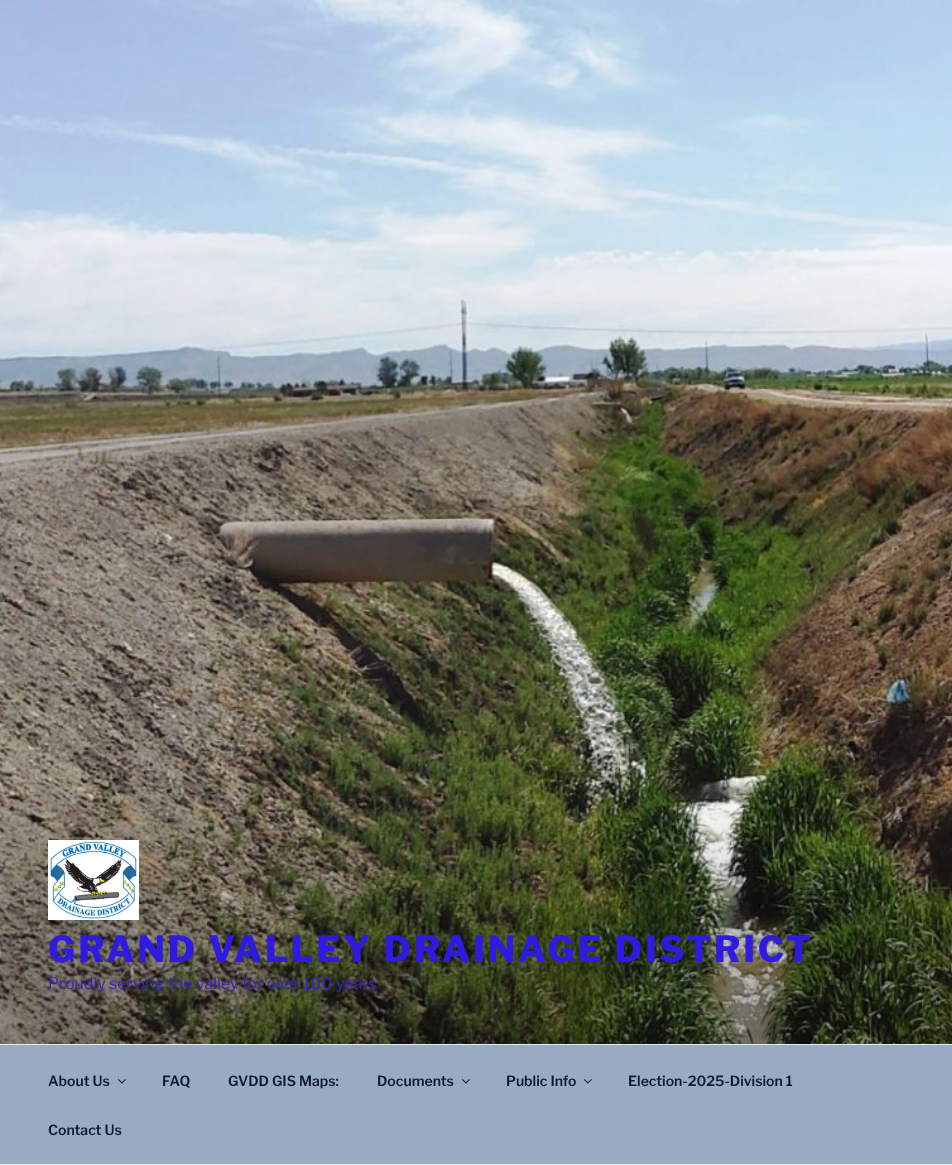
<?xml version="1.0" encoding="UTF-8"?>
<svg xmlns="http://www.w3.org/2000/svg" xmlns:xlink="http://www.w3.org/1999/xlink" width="952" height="1165">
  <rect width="100%" height="100%" fill="#ffffff" />
  <image x="0" y="0" width="952" height="1044" xlink:href="image1.png" />
  <image x="48" y="840" width="91" height="80" xlink:href="image2.png" />
  <rect y="1045" width="952" height="119" fill="#98abc1" />
  <rect y="1044" width="952" height="1" fill="#e4e9f6" />
  <rect y="1164" width="952" height="1" fill="#e4e9f6" />
  <image x="118" y="1079" width="8" height="5" xlink:href="image3.png" />
  <image x="462" y="1079" width="8" height="5" xlink:href="image3.png" />
  <image x="584" y="1079" width="8" height="5" xlink:href="image3.png" />
  <text x="48" y="962" style="font-family: Libre Franklin; font-size: 36px; font-weight: 100; letter-spacing: 2.9px; fill: #2e1ae0">GRAND VALLEY DRAINAGE DISTRICT</text>
  <text x="48" y="989" style="font-family: 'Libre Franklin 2'; font-size: 16px; font-weight: 100; fill: #3424bf">Proudly serving the valley for over 100 years</text>
  <text x="48" y="1086" style="font-family: 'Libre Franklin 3'; font-size: 14px; font-weight: 100; fill: #111932">About Us</text>
  <text x="162" y="1086" style="font-family: 'Libre Franklin 3'; font-size: 14px; font-weight: 100; fill: #111932">FAQ</text>
  <text x="228" y="1086" style="font-family: 'Libre Franklin 3'; font-size: 14px; font-weight: 100; fill: #111932">GVDD GIS Maps:</text>
  <text x="377" y="1086" style="font-family: 'Libre Franklin 3'; font-size: 14px; font-weight: 100; fill: #111932">Documents</text>
  <text x="506" y="1086" style="font-family: 'Libre Franklin 3'; font-size: 14px; font-weight: 100; fill: #111932">Public Info</text>
  <text x="628" y="1086" style="font-family: 'Libre Franklin 3'; font-size: 14px; font-weight: 100; fill: #111932">Election-2025-Division 1</text>
  <text x="48" y="1135" style="font-family: 'Libre Franklin 3'; font-size: 14px; font-weight: 100; fill: #111932">Contact Us</text>
</svg>
